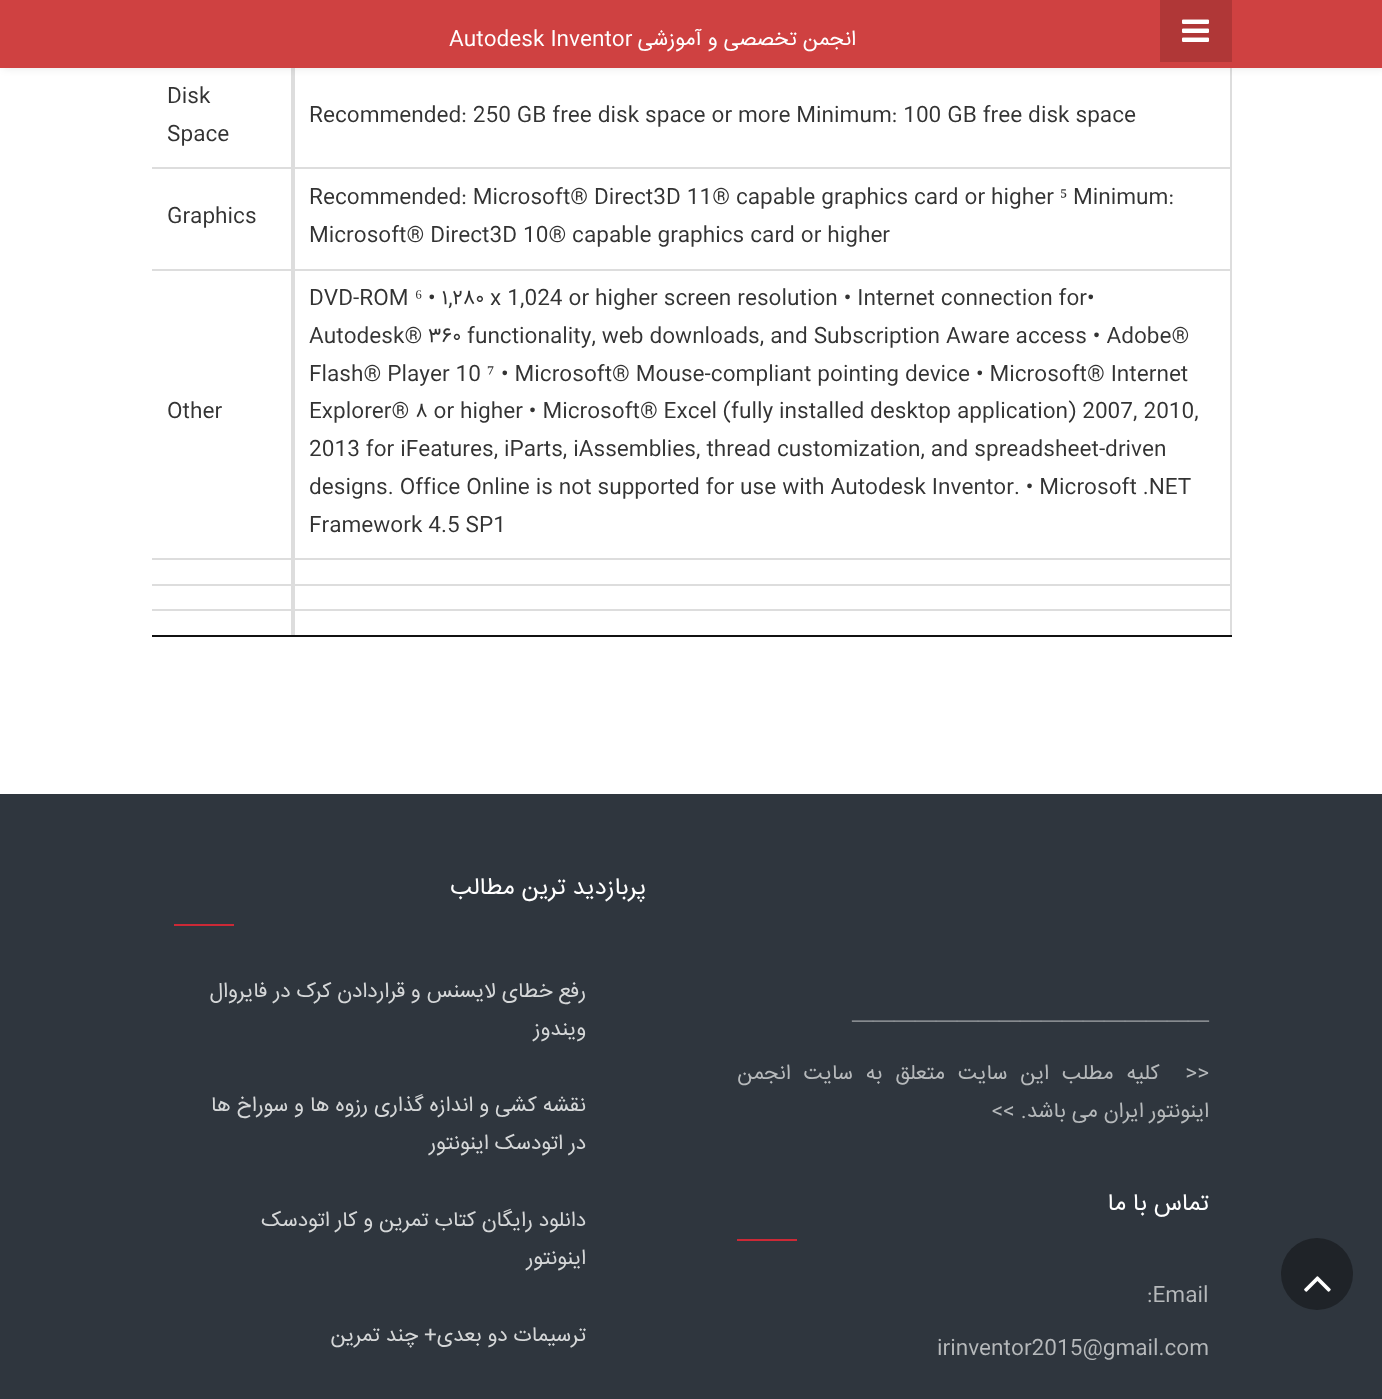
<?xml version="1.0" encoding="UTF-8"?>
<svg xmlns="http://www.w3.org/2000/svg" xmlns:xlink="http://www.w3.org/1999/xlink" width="1382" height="1399">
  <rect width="100%" height="100%" fill="#ffffff" />
  <rect x="1230" y="66" width="2" height="101" fill="#dddddd" />
  <rect x="291" y="66" width="4" height="101" fill="#dddddd" />
  <rect x="3" width="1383" height="68" fill="#000000" fill-opacity="0.1" filter="blur(4px)" />
  <rect width="1382" height="68" fill="#cf4141" />
  <rect x="1160" width="72" height="62" fill="#b03737" />
  <image x="1182" y="19" width="27" height="23" xlink:href="image1.png" />
  <rect x="152" y="635" width="1080" height="2" fill="#111111" />
  <rect x="152" y="167" width="1080" height="2" fill="#dddddd" />
  <rect x="1230" y="167" width="2" height="102" fill="#dddddd" />
  <rect x="291" y="167" width="4" height="102" fill="#dddddd" />
  <rect x="152" y="269" width="1080" height="2" fill="#dddddd" />
  <rect x="1230" y="269" width="2" height="289" fill="#dddddd" />
  <rect x="291" y="269" width="4" height="289" fill="#dddddd" />
  <rect x="152" y="558" width="1080" height="2" fill="#dddddd" />
  <rect x="1230" y="558" width="2" height="26" fill="#dddddd" />
  <rect x="291" y="558" width="4" height="26" fill="#dddddd" />
  <rect x="152" y="584" width="1080" height="2" fill="#dddddd" />
  <rect x="1230" y="584" width="2" height="25" fill="#dddddd" />
  <rect x="291" y="584" width="4" height="25" fill="#dddddd" />
  <rect x="152" y="609" width="1080" height="2" fill="#dddddd" />
  <rect x="1230" y="609" width="2" height="26" fill="#dddddd" />
  <rect x="291" y="609" width="4" height="26" fill="#dddddd" />
  <rect y="794" width="1382" height="605" fill="#2f363e" />
  <rect x="174" y="924" width="60" height="2" fill="#cc2936" />
  <rect x="737" y="1239" width="60" height="2" fill="#cc2936" />
  <circle cx="1317" cy="1274" r="36" fill="#1f2328" />
  <image x="1304" y="1276" width="27" height="16" xlink:href="image2.png" />
  <text x="449" y="45" style="font-family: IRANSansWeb; font-size: 21px; fill: #ffffff">Autodesk Inventor</text>
  <text x="856" y="45" style="font-family: IRANSansWeb; font-size: 21px; direction: rtl; fill: #ffffff">انجمن تخصصی و آموزشی</text>
  <text x="167" y="102" style="font-family: IRANSansWeb; font-size: 21px; fill: #333333">Disk</text>
  <text x="167" y="140" style="font-family: IRANSansWeb; font-size: 21px; fill: #333333">Space</text>
  <text x="309" y="121" style="font-family: IRANSansWeb; font-size: 21px; fill: #333333">Recommended: 250 GB free disk space or more Minimum: 100 GB free disk space</text>
  <text x="167" y="222" style="font-family: IRANSansWeb; font-size: 21px; fill: #333333">Graphics</text>
  <text x="309" y="203" style="font-family: IRANSansWeb; font-size: 21px; fill: #333333">Recommended: Microsoft® Direct3D 11® capable graphics card or higher</text>
  <text x="1060" y="203" style="font-family: Liberation Serif; font-size: 21px; fill: #333333">⁵</text>
  <text x="1073" y="203" style="font-family: IRANSansWeb; font-size: 21px; fill: #333333">Minimum:</text>
  <text x="309" y="241" style="font-family: IRANSansWeb; font-size: 21px; fill: #333333">Microsoft® Direct3D 10® capable graphics card or higher</text>
  <text x="167" y="417" style="font-family: IRANSansWeb; font-size: 21px; fill: #333333">Other</text>
  <text x="309" y="304" style="font-family: IRANSansWeb; font-size: 21px; fill: #333333">DVD-ROM</text>
  <text x="415" y="304" style="font-family: Liberation Serif; font-size: 21px; fill: #333333">⁶</text>
  <text x="428" y="304" style="font-family: IRANSansWeb; font-size: 21px; fill: #333333">• ۱,۲۸۰ x 1,024 or higher screen resolution • Internet connection for•</text>
  <text x="309" y="342" style="font-family: IRANSansWeb; font-size: 21px; fill: #333333">Autodesk® ۳۶۰ functionality, web downloads, and Subscription Aware access • Adobe®</text>
  <text x="309" y="380" style="font-family: IRANSansWeb; font-size: 21px; fill: #333333">Flash® Player 10</text>
  <text x="487" y="380" style="font-family: Liberation Serif; font-size: 21px; fill: #333333">⁷</text>
  <text x="501" y="380" style="font-family: IRANSansWeb; font-size: 21px; fill: #333333">• Microsoft® Mouse-compliant pointing device • Microsoft® Internet</text>
  <text x="309" y="417" style="font-family: IRANSansWeb; font-size: 21px; fill: #333333">Explorer® ۸ or higher • Microsoft® Excel (fully installed desktop application) 2007, 2010,</text>
  <text x="309" y="455" style="font-family: IRANSansWeb; font-size: 21px; fill: #333333">2013 for iFeatures, iParts, iAssemblies, thread customization, and spreadsheet-driven</text>
  <text x="309" y="493" style="font-family: IRANSansWeb; font-size: 21px; fill: #333333">designs. Office Online is not supported for use with Autodesk Inventor. • Microsoft .NET</text>
  <text x="309" y="531" style="font-family: IRANSansWeb; font-size: 21px; fill: #333333">Framework 4.5 SP1</text>
  <text x="646" y="894" style="font-family: IRANSansWeb; font-size: 24px; direction: rtl; fill: #ffffff">پربازدید ترین مطالب</text>
  <text x="586" y="997" style="font-family: IRANSansWeb; font-size: 21px; direction: rtl; fill: #d5d7d8">رفع خطای لایسنس و قراردادن کرک در فایروال</text>
  <text x="586" y="1035" style="font-family: IRANSansWeb; font-size: 21px; direction: rtl; fill: #d5d7d8">ویندوز</text>
  <text x="586" y="1111" style="font-family: IRANSansWeb; font-size: 21px; direction: rtl; fill: #d5d7d8">نقشه کشی و اندازه گذاری رزوه ها و سوراخ ها</text>
  <text x="586" y="1149" style="font-family: IRANSansWeb; font-size: 21px; direction: rtl; fill: #d5d7d8">در اتودسک اینونتور</text>
  <text x="586" y="1226" style="font-family: IRANSansWeb; font-size: 21px; direction: rtl; fill: #d5d7d8">دانلود رایگان کتاب تمرین و کار اتودسک</text>
  <text x="586" y="1264" style="font-family: IRANSansWeb; font-size: 21px; direction: rtl; fill: #d5d7d8">اینونتور</text>
  <text x="586" y="1341" style="font-family: IRANSansWeb; font-size: 21px; direction: rtl; fill: #d5d7d8">ترسیمات دو بعدی+ چند تمرین</text>
  <text x="852" y="1026" style="font-family: Liberation Serif; font-size: 21px; fill: #b6b9bb">—————————————————</text>
  <text x="1209" y="1079" word-spacing="7" style="font-family: IRANSansWeb; font-size: 21px; direction: rtl; fill: #b6b9bb" xml:space="preserve">&lt;&lt;  کلیه مطلب این سایت متعلق به سایت انجمن</text>
  <text x="1209" y="1117" style="font-family: IRANSansWeb; font-size: 21px; direction: rtl; fill: #b6b9bb">اینونتور ایران می باشد. &gt;&gt;</text>
  <text x="1209" y="1210" style="font-family: IRANSansWeb; font-size: 24px; direction: rtl; fill: #ffffff">تماس با ما</text>
  <text x="1147" y="1301" style="font-family: IRANSansWeb; font-size: 21px; fill: #b6b9bb">:Email</text>
  <text x="937" y="1354" style="font-family: IRANSansWeb; font-size: 21px; fill: #b6b9bb">irinventor2015@gmail.com</text>
</svg>
